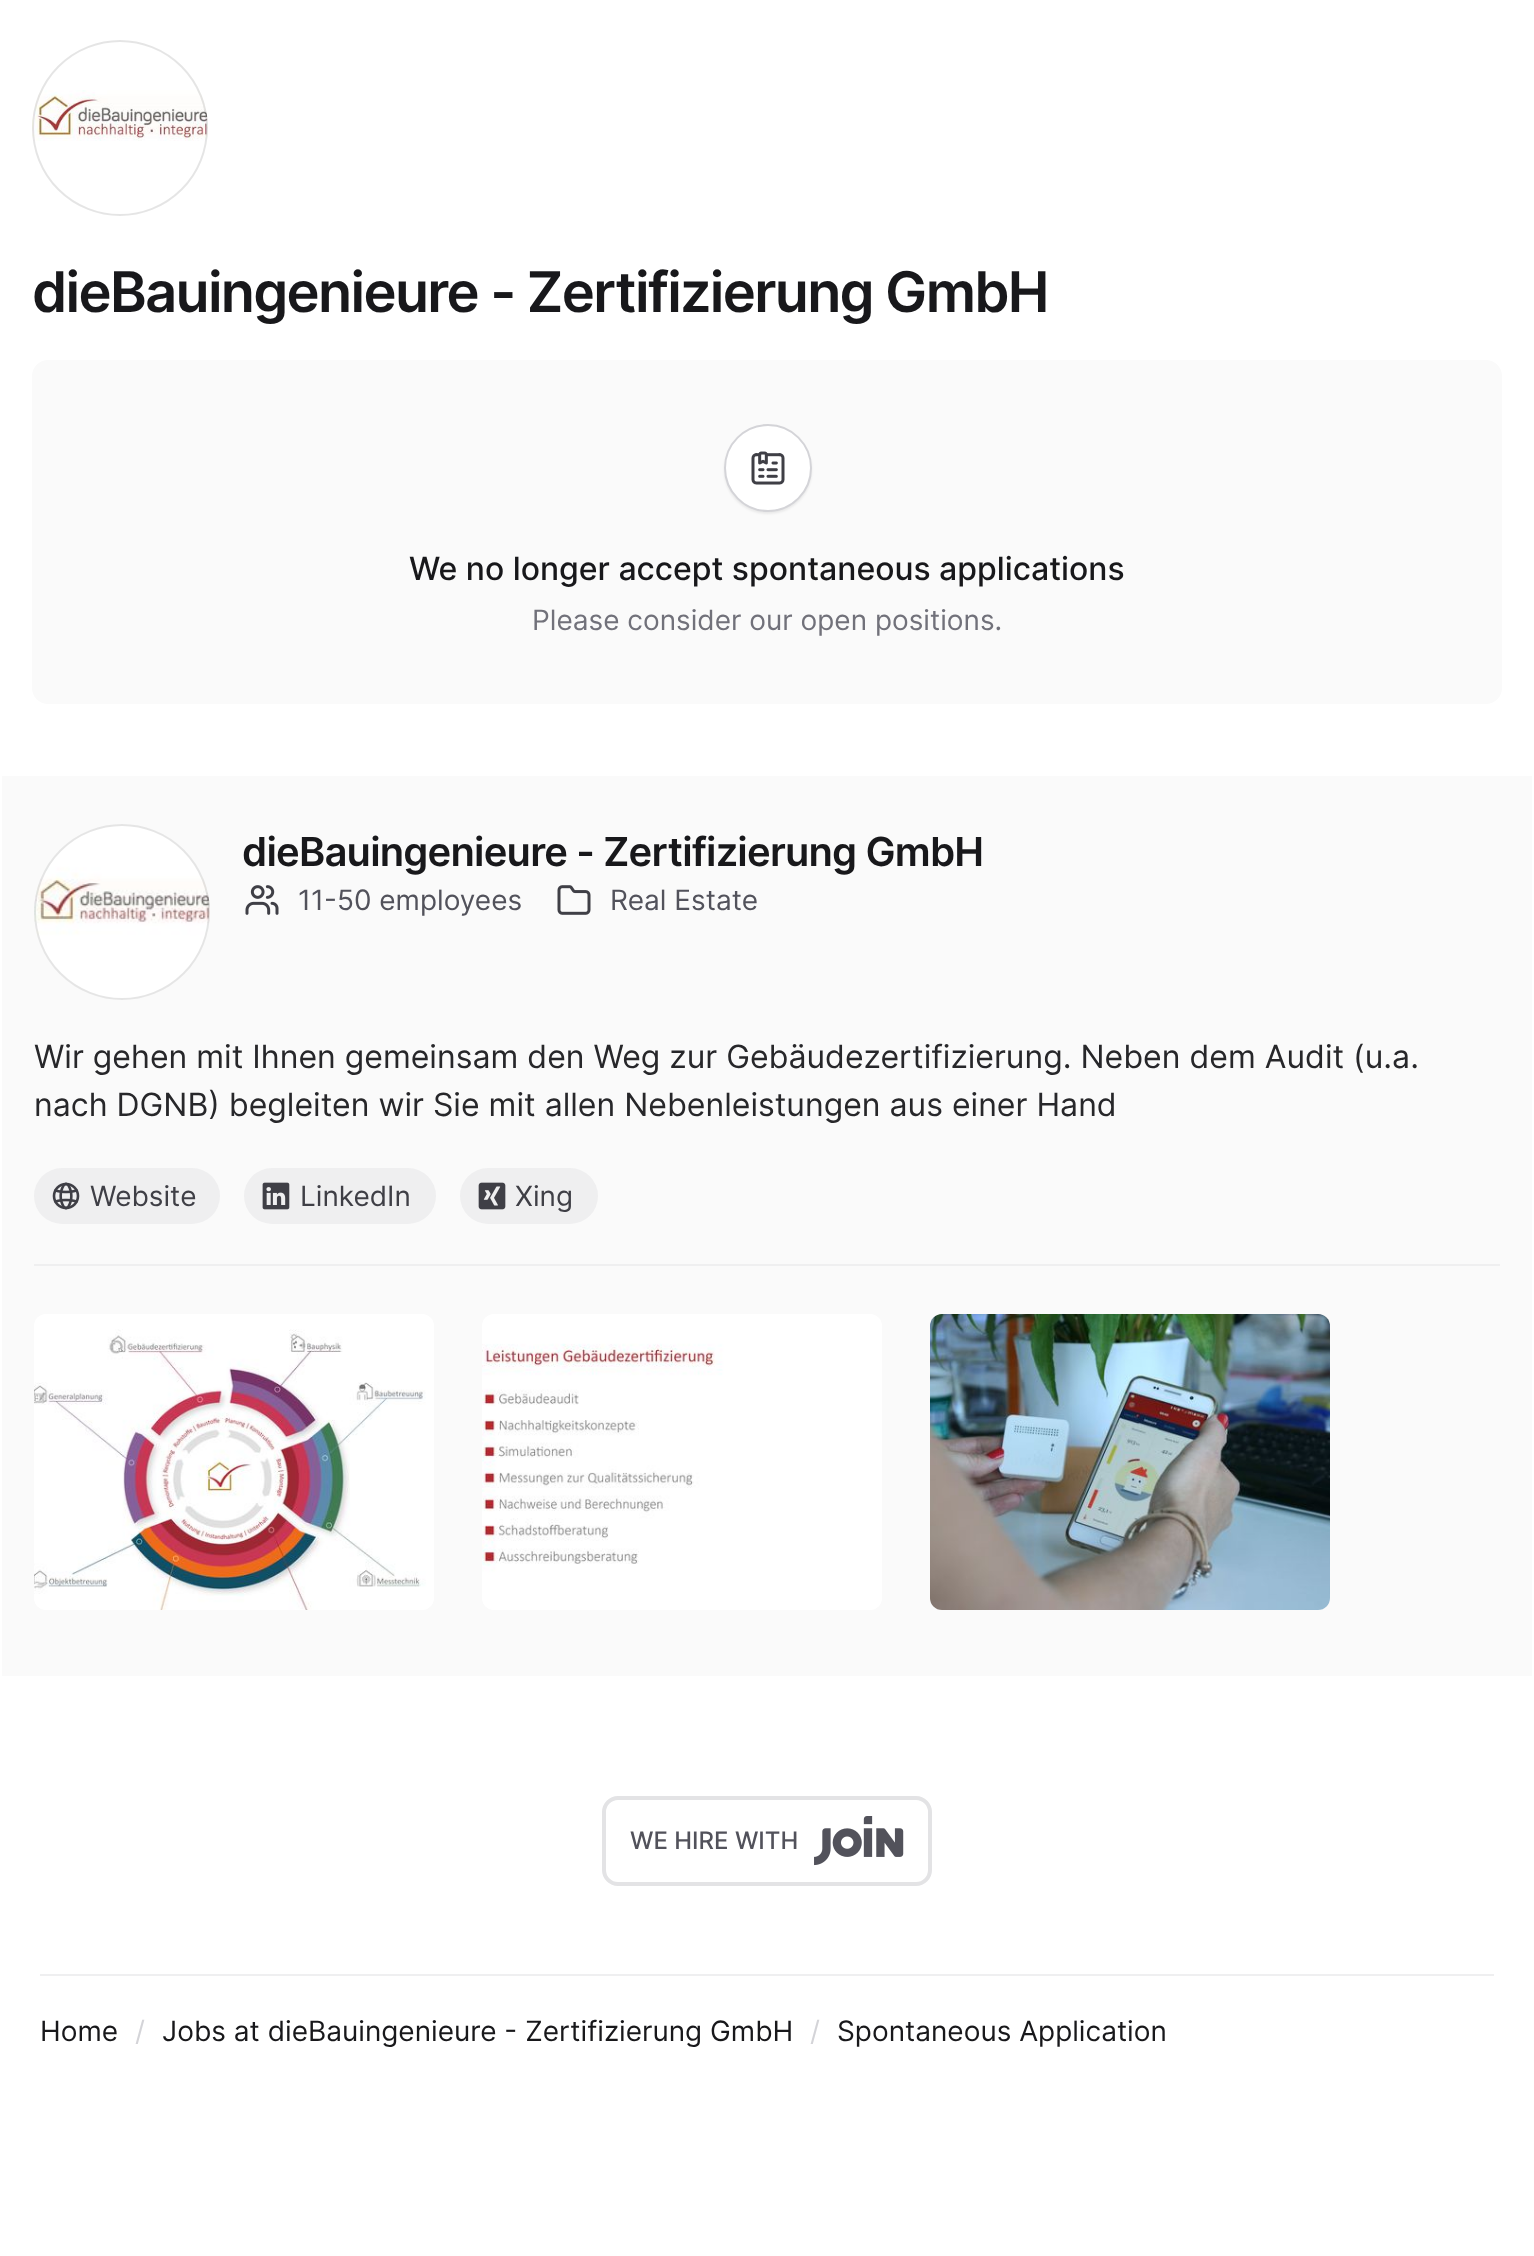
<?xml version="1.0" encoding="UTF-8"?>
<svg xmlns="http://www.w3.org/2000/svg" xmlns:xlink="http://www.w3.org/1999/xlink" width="1534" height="2256">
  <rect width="100%" height="100%" fill="#ffffff" />
  <image x="32" y="90" width="176" height="51" xlink:href="image1.png" />
  <circle cx="120" cy="128" r="87" fill="none" stroke="#000000" stroke-opacity="0.1" stroke-width="2" />
  <rect x="32" y="360" width="1470" height="344" rx="16" fill="#fafafa" />
  <rect x="724" y="426" width="88" height="88" rx="44" fill="#000000" fill-opacity="0.07" filter="blur(1px)" />
  <circle cx="768" cy="468" r="43" fill="#ffffff" stroke="#d4d4d8" stroke-width="2" />
  <image x="751" y="451" width="34" height="34" xlink:href="image2.png" />
  <rect x="2" y="776" width="1530" height="900" fill="#fafafa" />
  <image x="34" y="824" width="176" height="176" xlink:href="image3.png" />
  <circle cx="122" cy="912" r="87" fill="none" stroke="#000000" stroke-opacity="0.1" stroke-width="2" />
  <image x="245" y="885" width="34" height="30" xlink:href="image4.png" />
  <image x="557" y="885" width="34" height="30" xlink:href="image5.png" />
  <rect x="34" y="1168" width="186" height="56" rx="28" fill="#efeff0" />
  <image x="52" y="1182" width="28" height="28" xlink:href="image6.png" />
  <rect x="244" y="1168" width="192" height="56" rx="28" fill="#efeff0" />
  <image x="262" y="1182" width="28" height="28" xlink:href="image7.png" />
  <rect x="460" y="1168" width="138" height="56" rx="28" fill="#efeff0" />
  <image x="478" y="1182" width="28" height="28" xlink:href="image8.png" />
  <rect x="34" y="1264" width="1466" height="2" fill="#efeff0" />
  <image x="34" y="1314" width="400" height="296" xlink:href="image9.png" />
  <image x="482" y="1314" width="400" height="296" xlink:href="image10.png" />
  <image x="930" y="1314" width="400" height="296" xlink:href="image11.png" />
  <rect x="604" y="1798" width="326" height="86" rx="14" fill="none" stroke="#e3e3e5" stroke-width="4" />
  <image x="814" y="1816" width="90" height="50" xlink:href="image12.png" />
  <rect x="40" y="1974" width="1454" height="2" fill="#efeff0" />
  <text x="32" y="312" style="font-family: Inter; font-size: 56px; font-weight: 600; letter-spacing: -1.7px; fill: #18181b">dieBauingenieure - Zertifizierung GmbH</text>
  <text x="409" y="580" style="font-family: Inter; font-size: 32px; font-weight: 500; fill: #18181b">We no longer accept spontaneous applications</text>
  <text x="532" y="630" style="font-family: Inter; font-size: 28px; fill: #71717a">Please consider our open positions.</text>
  <text x="242" y="866" style="font-family: Inter; font-size: 40px; font-weight: 600; letter-spacing: -0.8px; fill: #18181b">dieBauingenieure - Zertifizierung GmbH</text>
  <text x="298" y="910" style="font-family: Inter; font-size: 28px; fill: #52525b">11-50 employees</text>
  <text x="610" y="910" style="font-family: Inter; font-size: 28px; fill: #52525b">Real Estate</text>
  <text x="34" y="1068" style="font-family: Inter; font-size: 32px; fill: #27272a">Wir gehen mit Ihnen gemeinsam den Weg zur Gebäudezertifizierung. Neben dem Audit (u.a.</text>
  <text x="34" y="1116" style="font-family: Inter; font-size: 32px; fill: #27272a">nach DGNB) begleiten wir Sie mit allen Nebenleistungen aus einer Hand</text>
  <text x="90" y="1206" style="font-family: Inter; font-size: 28px; fill: #3f3f46">Website</text>
  <text x="300" y="1206" style="font-family: Inter; font-size: 28px; fill: #3f3f46">LinkedIn</text>
  <text x="515" y="1206" style="font-family: Inter; font-size: 28px; fill: #3f3f46">Xing</text>
  <text x="630" y="1849" style="font-family: Inter; font-size: 24px; font-weight: 500; fill: #52525b">WE HIRE WITH</text>
  <text x="40" y="2041" style="font-family: Inter; font-size: 28px; fill: #18181b">Home</text>
  <text x="135" y="2041" style="font-family: Inter; font-size: 28px; fill: #d4d4d8">/</text>
  <text x="162" y="2041" style="font-family: Inter; font-size: 28px; fill: #18181b">Jobs at dieBauingenieure - Zertifizierung GmbH</text>
  <text x="810" y="2041" style="font-family: Inter; font-size: 28px; fill: #d4d4d8">/</text>
  <text x="837" y="2041" style="font-family: Inter; font-size: 28px; fill: #18181b">Spontaneous Application</text>
</svg>
